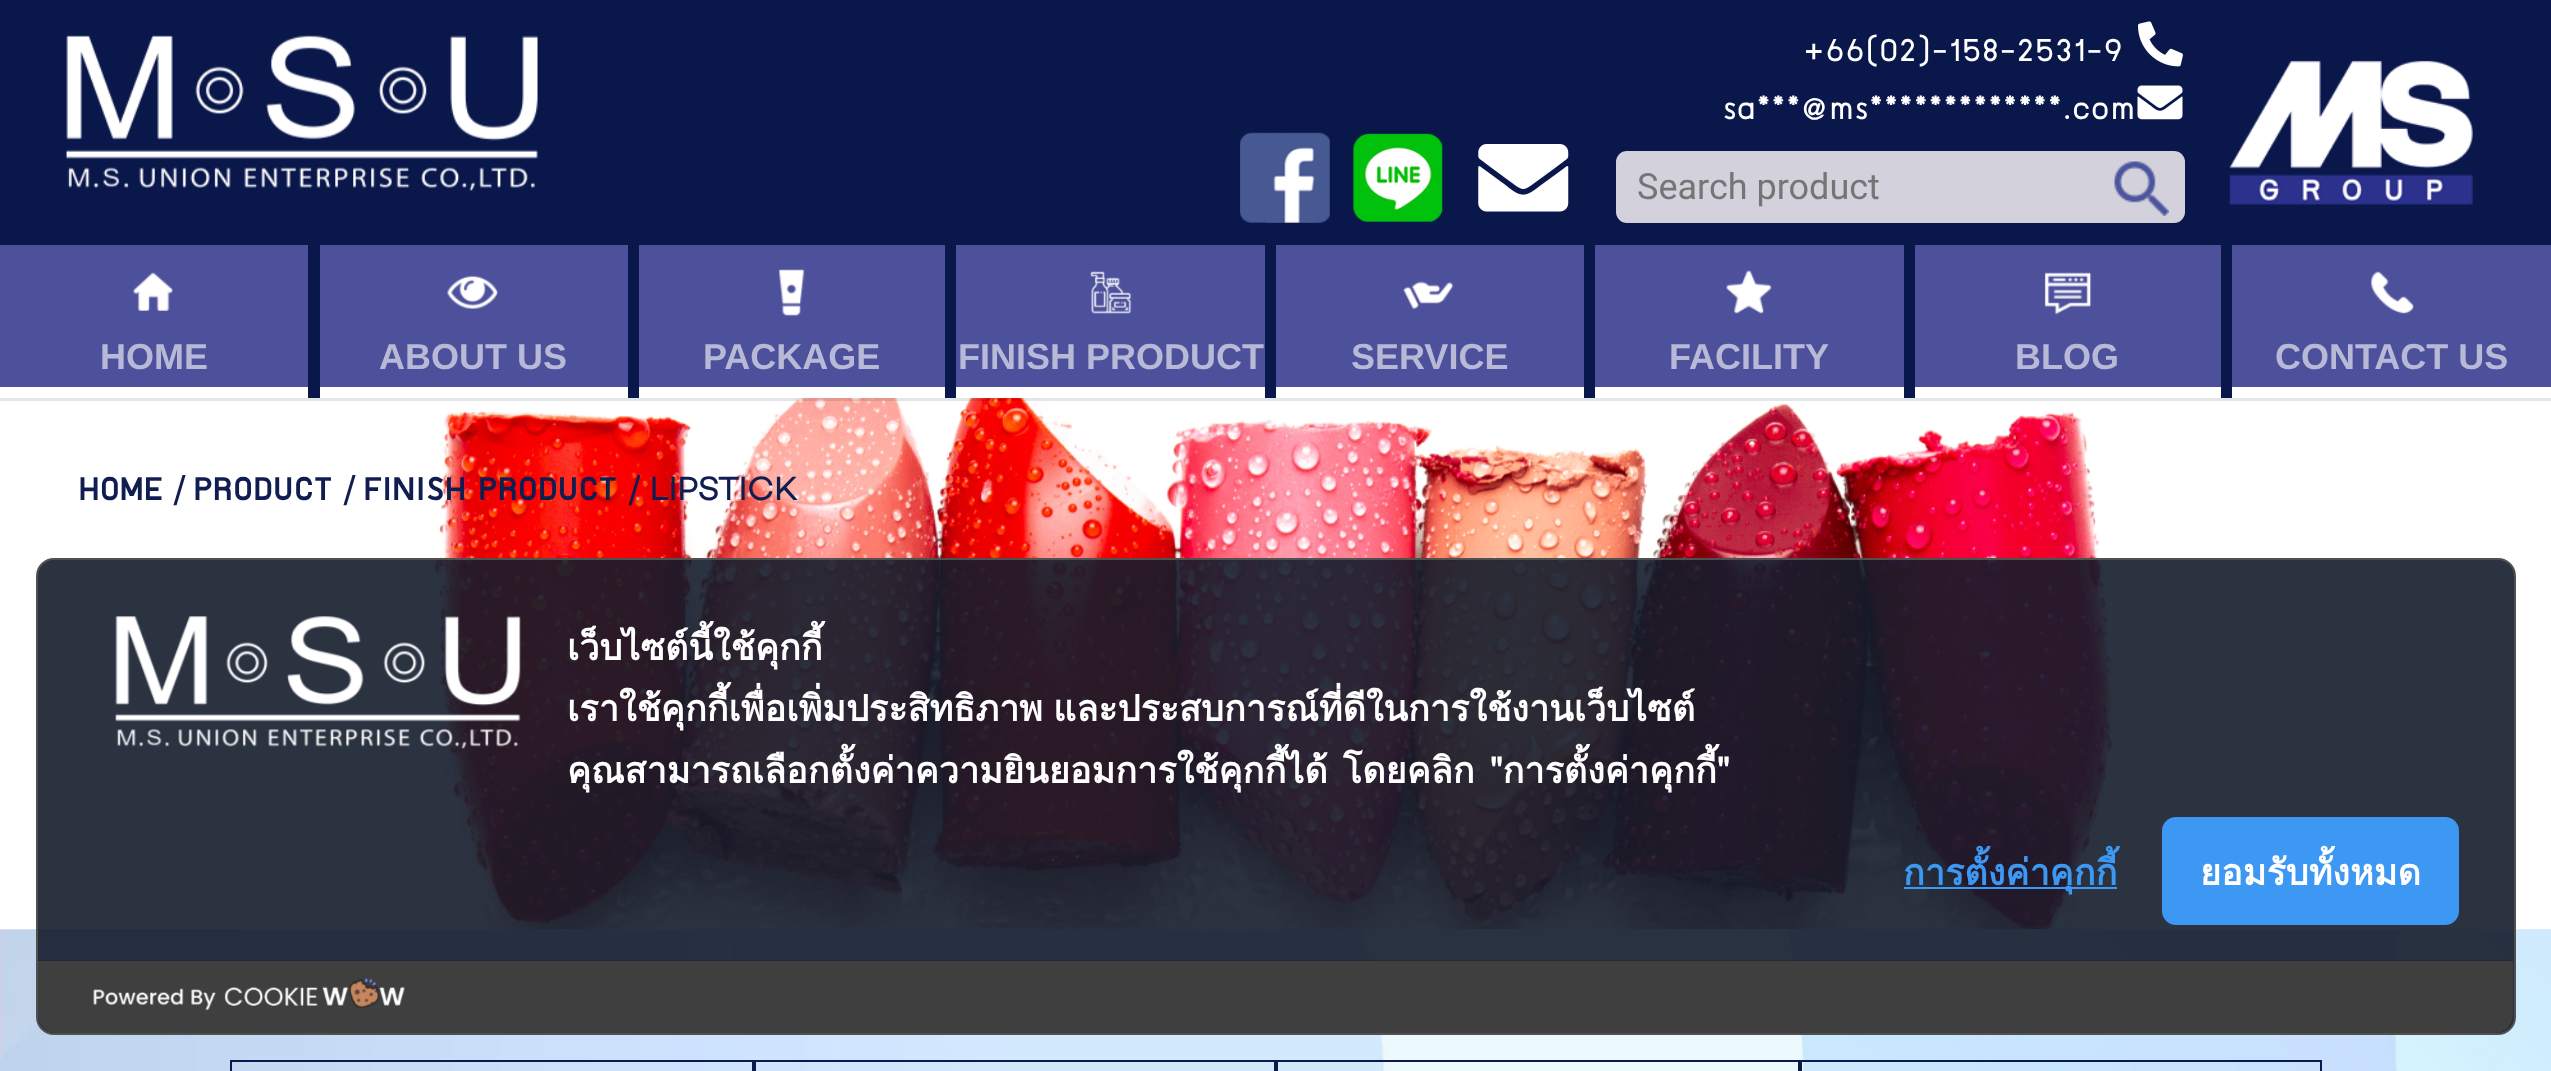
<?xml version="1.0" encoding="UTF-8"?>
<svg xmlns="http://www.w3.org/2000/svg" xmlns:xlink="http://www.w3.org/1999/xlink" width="2551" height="1071">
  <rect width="100%" height="100%" fill="#ffffff" />
  <image x="423" y="398" width="1702" height="532" xlink:href="image17.png" />
  <image x="434" y="398" width="1690" height="532" xlink:href="image18.png" />
  <path d="M 0 398 v 3 h 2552 v -399 v 396 z" fill="#000000" fill-opacity="0.1" />
  <rect width="2551" height="398" fill="#0a174b" />
  <image x="66" y="35" width="472" height="156" xlink:href="image1.png" />
  <image x="1240" y="132" width="90" height="91" xlink:href="image2.png" />
  <image x="1353" y="133" width="90" height="89" xlink:href="image3.png" />
  <image x="1478" y="144" width="91" height="68" xlink:href="image4.png" />
  <image x="2138" y="21" width="45" height="46" xlink:href="image5.png" />
  <image x="2137" y="85" width="46" height="35" xlink:href="image6.png" />
  <rect x="1616" y="151" width="569" height="72" rx="11" fill="#d3d2dc" />
  <image x="2114" y="161" width="55" height="55" xlink:href="image7.png" />
  <image x="2229" y="60" width="244" height="145" xlink:href="image8.png" />
  <rect y="245" width="308" height="142" fill="#4d519c" />
  <image x="133" y="272" width="40" height="39" xlink:href="image9.png" />
  <rect y="387" width="308" height="11" fill="#ffffff" />
  <rect x="320" y="245" width="308" height="142" fill="#4d519c" />
  <image x="447" y="275" width="51" height="34" xlink:href="image10.png" />
  <rect x="320" y="387" width="308" height="11" fill="#ffffff" />
  <rect x="639" y="245" width="306" height="142" fill="#4d519c" />
  <image x="779" y="269" width="26" height="47" xlink:href="image11.png" />
  <rect x="639" y="387" width="306" height="11" fill="#ffffff" />
  <rect x="956" y="245" width="309" height="142" fill="#4d519c" />
  <image x="1090" y="271" width="42" height="43" xlink:href="image12.png" />
  <rect x="956" y="387" width="309" height="11" fill="#ffffff" />
  <rect x="1276" y="245" width="308" height="142" fill="#4d519c" />
  <image x="1403" y="281" width="51" height="28" xlink:href="image13.png" />
  <rect x="1276" y="387" width="308" height="11" fill="#ffffff" />
  <rect x="1595" y="245" width="309" height="142" fill="#4d519c" />
  <image x="1726" y="270" width="46" height="44" xlink:href="image14.png" />
  <rect x="1595" y="387" width="309" height="11" fill="#ffffff" />
  <rect x="1915" y="245" width="306" height="142" fill="#4d519c" />
  <image x="2044" y="272" width="48" height="43" xlink:href="image15.png" />
  <rect x="1915" y="387" width="306" height="11" fill="#ffffff" />
  <rect x="2232" y="245" width="319" height="142" fill="#4d519c" />
  <image x="2371" y="271" width="43" height="43" xlink:href="image16.png" />
  <rect x="2232" y="387" width="319" height="11" fill="#ffffff" />
  <image x="0" y="929" width="2551" height="142" xlink:href="image19.png" />
  <rect x="231" y="1061" width="522" height="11" fill="none" stroke="#0c194d" stroke-width="2" />
  <rect x="755" y="1061" width="520" height="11" fill="none" stroke="#0c194d" stroke-width="2" />
  <rect x="1277" y="1061" width="522" height="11" fill="none" stroke="#0c194d" stroke-width="2" />
  <rect x="1801" y="1061" width="520" height="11" fill="none" stroke="#0c194d" stroke-width="2" />
  <rect x="37" y="559" width="2478" height="475" rx="17" fill="#141c2b" fill-opacity="0.9" stroke="#505050" stroke-width="2" />
  <image x="115" y="616" width="406" height="133" xlink:href="image20.png" />
  <rect x="1904" y="887" width="213" height="2" fill="#3d98f3" />
  <rect x="2162" y="817" width="297" height="108" rx="14" fill="#3d98f3" />
  <path d="M 38 961 h 2475 v 54 c 0 10 -8 18 -18 18 h -2439 c -10 0 -18 -8 -18 -18 z" fill="#3f3f3f" />
  <image x="93" y="978" width="312" height="32" xlink:href="image21.png" />
  <text x="1803" y="61" style="font-family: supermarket; font-size: 36px; letter-spacing: 2.25px; fill: #ffffff">+66(02)-158-2531-9</text>
  <text x="1724" y="119" style="font-family: supermarket; font-size: 36px; letter-spacing: 2.25px; fill: #ffffff">sa***@ms*************.com</text>
  <text x="1637" y="199" style="font-family: Roboto; font-size: 36px; fill: #757575">Search product</text>
  <text x="100" y="369" style="font-family: Liberation Sans; font-size: 36px; font-weight: bold; fill: #b8b9d7">HOME</text>
  <text x="379" y="369" style="font-family: Liberation Sans; font-size: 36px; font-weight: bold; fill: #b8b9d7">ABOUT US</text>
  <text x="703" y="369" style="font-family: Liberation Sans; font-size: 36px; font-weight: bold; fill: #b8b9d7">PACKAGE</text>
  <text x="958" y="369" style="font-family: Liberation Sans; font-size: 36px; font-weight: bold; fill: #b8b9d7">FINISH PRODUCT</text>
  <text x="1351" y="369" style="font-family: Liberation Sans; font-size: 36px; font-weight: bold; fill: #b8b9d7">SERVICE</text>
  <text x="1669" y="369" style="font-family: Liberation Sans; font-size: 36px; font-weight: bold; fill: #b8b9d7">FACILITY</text>
  <text x="2015" y="369" style="font-family: Liberation Sans; font-size: 36px; font-weight: bold; fill: #b8b9d7">BLOG</text>
  <text x="2275" y="369" style="font-family: Liberation Sans; font-size: 36px; font-weight: bold; fill: #b8b9d7">CONTACT US</text>
  <text x="79" y="500" style="font-family: supermarket; font-size: 36px; font-weight: bold; letter-spacing: 2.25px; fill: #101d51">HOME</text>
  <text x="172" y="500" style="font-family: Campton; font-size: 33px; font-weight: bold; fill: #101d51">/</text>
  <text x="194" y="500" style="font-family: supermarket; font-size: 36px; font-weight: bold; letter-spacing: 2.25px; fill: #101d51">PRODUCT</text>
  <text x="342" y="500" style="font-family: Campton; font-size: 33px; font-weight: bold; fill: #101d51">/</text>
  <text x="364" y="500" style="font-family: supermarket; font-size: 36px; font-weight: bold; letter-spacing: 2.25px; fill: #101d51">FINISH PRODUCT</text>
  <text x="627" y="500" style="font-family: Campton; font-size: 33px; font-weight: bold; fill: #101d51">/ LIPSTICK</text>
  <text x="567" y="660" style="font-family: Loma; font-size: 36px; font-weight: bold; fill: #ffffff">เว็บไซต์นี้ใช้คุกกี้</text>
  <text x="567" y="721" word-spacing="-2" style="font-family: Loma; font-size: 36px; font-weight: bold; fill: #ffffff">เราใช้คุกกี้เพื่อเพิ่มประสิทธิภาพ และประสบการณ์ที่ดีในการใช้งานเว็บไซต์</text>
  <text x="567" y="783" word-spacing="3" style="font-family: Loma; font-size: 36px; font-weight: bold; fill: #ffffff">คุณสามารถเลือกตั้งค่าความยินยอมการใช้คุกกี้ได้ โดยคลิก "การตั้งค่าคุกกี้"</text>
  <text x="1903" y="885" style="font-family: Loma; font-size: 36px; font-weight: bold; fill: #3d98f3">การตั้งค่าคุกกี้</text>
  <text x="2200" y="885" style="font-family: Loma; font-size: 36px; font-weight: bold; fill: #ffffff">ยอมรับทั้งหมด</text>
</svg>
